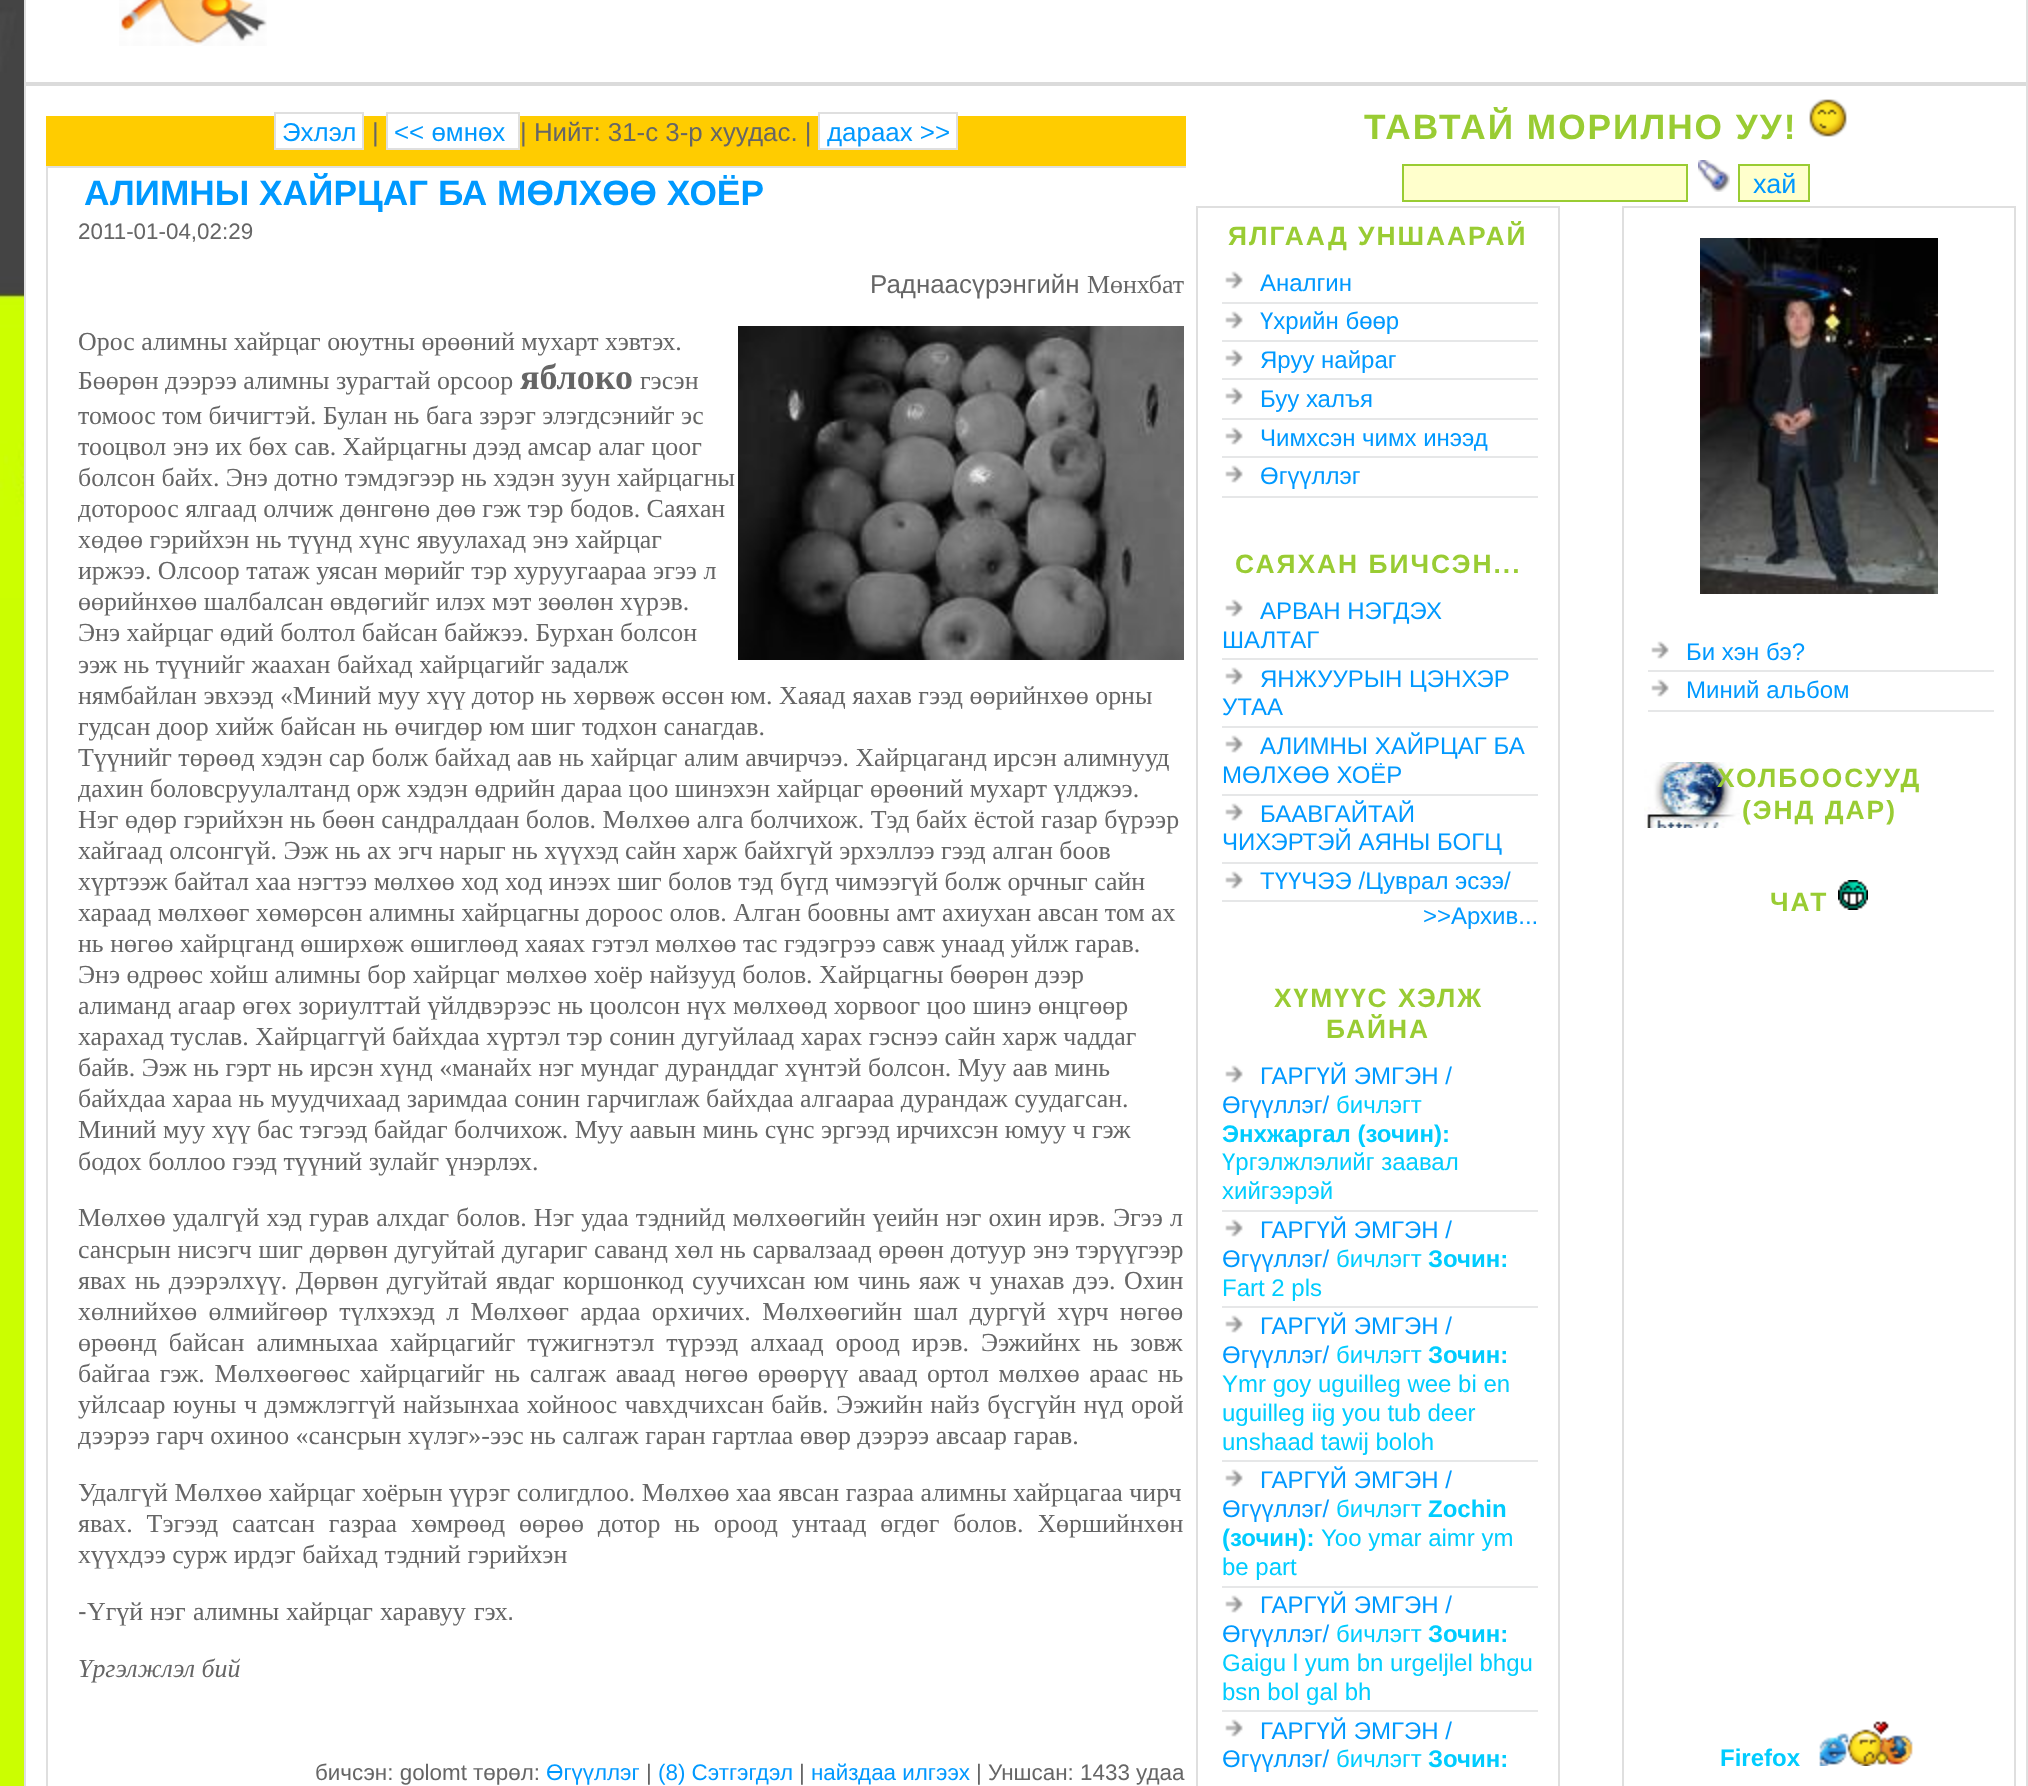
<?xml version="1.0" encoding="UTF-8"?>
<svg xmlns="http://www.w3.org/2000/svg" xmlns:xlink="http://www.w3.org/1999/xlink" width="2028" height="1786">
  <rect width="100%" height="100%" fill="#cbfe01" />
  <image x="0" y="0" width="24" height="598" xlink:href="image1.png" />
  <rect x="25" y="-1" width="2002" height="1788" fill="#ffffff" stroke="#dfdfdf" stroke-width="2" />
  <rect x="26" y="82" width="2000" height="4" fill="#dbdbdb" />
  <image x="119" y="0" width="148" height="46" xlink:href="image2.png" />
  <rect x="46" y="116" width="1140" height="50" fill="#ffcc00" />
  <rect x="276" y="116" width="86" height="32" fill="#ffffff" />
  <rect x="275" y="113" width="88" height="36" fill="none" stroke="#dfdfdf" stroke-width="2" />
  <rect x="388" y="116" width="130" height="32" fill="#ffffff" />
  <rect x="387" y="113" width="132" height="36" fill="none" stroke="#dfdfdf" stroke-width="2" />
  <rect x="820" y="116" width="136" height="32" fill="#ffffff" />
  <rect x="819" y="113" width="138" height="36" fill="none" stroke="#dfdfdf" stroke-width="2" />
  <rect x="47" y="167" width="1158" height="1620" fill="none" stroke="#dfdfdf" stroke-width="2" />
  <image x="738" y="326" width="446" height="334" xlink:href="image3.png" />
  <rect x="1186" y="166" width="20" height="1620" fill="#ffffff" />
  <image x="1809" y="99" width="38" height="38" xlink:href="image4.png" />
  <rect x="1403" y="165" width="284" height="36" fill="#ffffcc" stroke="#99cc33" stroke-width="2" />
  <image x="1698" y="160" width="32" height="32" xlink:href="image5.png" />
  <rect x="1739" y="165" width="70" height="36" fill="#ffffcc" stroke="#99cc33" stroke-width="2" />
  <rect x="1197" y="207" width="362" height="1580" fill="none" stroke="#dfdfdf" stroke-width="2" />
  <rect x="1222" y="302" width="316" height="2" fill="#e6e7e8" />
  <image x="1225" y="271" width="18" height="18" xlink:href="image6.png" />
  <rect x="1222" y="340" width="316" height="2" fill="#e6e7e8" />
  <image x="1225" y="311" width="18" height="18" xlink:href="image6.png" />
  <rect x="1222" y="378" width="316" height="2" fill="#e6e7e8" />
  <image x="1225" y="349" width="18" height="18" xlink:href="image6.png" />
  <rect x="1222" y="418" width="316" height="2" fill="#e6e7e8" />
  <image x="1225" y="387" width="18" height="18" xlink:href="image6.png" />
  <rect x="1222" y="456" width="316" height="2" fill="#e6e7e8" />
  <image x="1225" y="427" width="18" height="18" xlink:href="image6.png" />
  <rect x="1222" y="496" width="316" height="2" fill="#e6e7e8" />
  <image x="1225" y="465" width="18" height="18" xlink:href="image6.png" />
  <rect x="1222" y="658" width="316" height="2" fill="#e6e7e8" />
  <image x="1225" y="599" width="18" height="18" xlink:href="image6.png" />
  <rect x="1222" y="726" width="316" height="2" fill="#e6e7e8" />
  <image x="1225" y="667" width="18" height="18" xlink:href="image6.png" />
  <rect x="1222" y="794" width="316" height="2" fill="#e6e7e8" />
  <image x="1225" y="735" width="18" height="18" xlink:href="image6.png" />
  <rect x="1222" y="862" width="316" height="2" fill="#e6e7e8" />
  <image x="1225" y="803" width="18" height="18" xlink:href="image6.png" />
  <rect x="1222" y="900" width="316" height="2" fill="#e6e7e8" />
  <image x="1225" y="871" width="18" height="18" xlink:href="image6.png" />
  <rect x="1222" y="1210" width="316" height="2" fill="#e6e7e8" />
  <image x="1225" y="1065" width="18" height="18" xlink:href="image6.png" />
  <rect x="1222" y="1306" width="316" height="2" fill="#e6e7e8" />
  <image x="1225" y="1219" width="18" height="18" xlink:href="image6.png" />
  <rect x="1222" y="1460" width="316" height="2" fill="#e6e7e8" />
  <image x="1225" y="1315" width="18" height="18" xlink:href="image6.png" />
  <rect x="1222" y="1586" width="316" height="2" fill="#e6e7e8" />
  <image x="1225" y="1469" width="18" height="18" xlink:href="image6.png" />
  <rect x="1222" y="1710" width="316" height="2" fill="#e6e7e8" />
  <image x="1225" y="1595" width="18" height="18" xlink:href="image6.png" />
  <image x="1225" y="1719" width="18" height="18" xlink:href="image6.png" />
  <rect x="1623" y="207" width="392" height="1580" fill="none" stroke="#dfdfdf" stroke-width="2" />
  <image x="1700" y="238" width="238" height="356" xlink:href="image7.png" />
  <rect x="1648" y="670" width="346" height="2" fill="#e6e7e8" />
  <image x="1651" y="641" width="18" height="18" xlink:href="image6.png" />
  <rect x="1648" y="710" width="346" height="2" fill="#e6e7e8" />
  <image x="1651" y="679" width="18" height="18" xlink:href="image6.png" />
  <image x="1644" y="762" width="96" height="66" xlink:href="image8.png" />
  <image x="1838" y="880" width="30" height="30" xlink:href="image9.png" />
  <image x="1819" y="1721" width="94" height="45" xlink:href="image10.png" />
  <text x="282" y="141" style="font-family: Liberation Sans; font-size: 25.9px; fill: #0099ff">Эхлэл</text>
  <text x="372" y="141" style="font-family: Liberation Sans; font-size: 25.9px; fill: #666666">|</text>
  <text x="394" y="141" style="font-family: Liberation Sans; font-size: 25.9px; fill: #0099ff">&lt;&lt; өмнөх</text>
  <text x="520" y="141" style="font-family: Liberation Sans; font-size: 25.9px; fill: #666666">| Нийт: 31-с 3-р хуудас. |</text>
  <text x="827" y="141" style="font-family: Liberation Sans; font-size: 25.9px; fill: #0099ff">дараах &gt;&gt;</text>
  <text x="84" y="205" style="font-family: Liberation Sans; font-size: 35.25px; font-weight: bold; fill: #0099ff">АЛИМНЫ ХАЙРЦАГ БА МӨЛХӨӨ ХОЁР</text>
  <text x="78" y="239" style="font-family: Liberation Sans; font-size: 22.4px; fill: #666666">2011-01-04,02:29</text>
  <text x="870" y="293" style="font-family: Liberation Sans; font-size: 25.9px; fill: #666666">Раднаасүрэнгийн</text>
  <text x="1087" y="293" style="font-family: Liberation Serif; font-size: 25.9px; fill: #666666">Мөнхбат</text>
  <text x="78" y="350" style="font-family: Liberation Serif; font-size: 25.9px; fill: #666666">Орос алимны хайрцаг оюутны өрөөний мухарт хэвтэх.</text>
  <text x="78" y="389" style="font-family: Liberation Serif; font-size: 25.9px; fill: #666666">Бөөрөн дээрээ алимны зурагтай орсоор</text>
  <text x="520" y="389" style="font-family: Liberation Serif; font-size: 36px; font-weight: bold; fill: #666666">яблоко</text>
  <text x="640" y="389" style="font-family: Liberation Serif; font-size: 25.9px; fill: #666666">гэсэн</text>
  <text x="78" y="424" style="font-family: Liberation Serif; font-size: 25.9px; fill: #666666">томоос том бичигтэй. Булан нь бага зэрэг элэгдсэнийг эс</text>
  <text x="78" y="455" style="font-family: Liberation Serif; font-size: 25.9px; fill: #666666">тооцвол энэ их бөх сав. Хайрцагны дээд амсар алаг цоог</text>
  <text x="78" y="486" style="font-family: Liberation Serif; font-size: 25.9px; fill: #666666">болсон байх. Энэ дотно тэмдэгээр нь хэдэн зуун хайрцагны</text>
  <text x="78" y="517" style="font-family: Liberation Serif; font-size: 25.9px; fill: #666666">дотороос ялгаад олчиж дөнгөнө дөө гэж тэр бодов. Саяхан</text>
  <text x="78" y="548" style="font-family: Liberation Serif; font-size: 25.9px; fill: #666666">хөдөө гэрийхэн нь түүнд хүнс явуулахад энэ хайрцаг</text>
  <text x="78" y="579" style="font-family: Liberation Serif; font-size: 25.9px; fill: #666666">иржээ. Олсоор татаж уясан мөрийг тэр хуруугаараа эгээ л</text>
  <text x="78" y="610" style="font-family: Liberation Serif; font-size: 25.9px; fill: #666666">өөрийнхөө шалбалсан өвдөгийг илэх мэт зөөлөн хүрэв.</text>
  <text x="78" y="641" style="font-family: Liberation Serif; font-size: 25.9px; fill: #666666">Энэ хайрцаг өдий болтол байсан байжээ. Бурхан болсон</text>
  <text x="78" y="673" style="font-family: Liberation Serif; font-size: 25.9px; fill: #666666">ээж нь түүнийг жаахан байхад хайрцагийг задалж</text>
  <text x="78" y="704" style="font-family: Liberation Serif; font-size: 25.9px; fill: #666666">нямбайлан эвхээд «Миний муу хүү дотор нь хөрвөж өссөн юм. Хаяад яахав гээд өөрийнхөө орны</text>
  <text x="78" y="735" style="font-family: Liberation Serif; font-size: 25.9px; fill: #666666">гудсан доор хийж байсан нь өчигдөр юм шиг тодхон санагдав.</text>
  <text x="78" y="766" style="font-family: Liberation Serif; font-size: 25.9px; fill: #666666">Түүнийг төрөөд хэдэн сар болж байхад аав нь хайрцаг алим авчирчээ. Хайрцаганд ирсэн алимнууд</text>
  <text x="78" y="797" style="font-family: Liberation Serif; font-size: 25.9px; fill: #666666">дахин боловсруулалтанд орж хэдэн өдрийн дараа цоо шинэхэн хайрцаг өрөөний мухарт үлджээ.</text>
  <text x="78" y="828" style="font-family: Liberation Serif; font-size: 25.9px; fill: #666666">Нэг өдөр гэрийхэн нь бөөн сандралдаан болов. Мөлхөө алга болчихож. Тэд байх ёстой газар бүрээр</text>
  <text x="78" y="859" style="font-family: Liberation Serif; font-size: 25.9px; fill: #666666">хайгаад олсонгүй. Ээж нь ах эгч нарыг нь хүүхэд сайн харж байхгүй эрхэллээ гээд алган боов</text>
  <text x="78" y="890" style="font-family: Liberation Serif; font-size: 25.9px; fill: #666666">хүртээж байтал хаа нэгтээ мөлхөө ход ход инээх шиг болов тэд бүгд чимээгүй болж орчныг сайн</text>
  <text x="78" y="921" style="font-family: Liberation Serif; font-size: 25.9px; fill: #666666">хараад мөлхөөг хөмөрсөн алимны хайрцагны дороос олов. Алган боовны амт ахиухан авсан том ах</text>
  <text x="78" y="952" style="font-family: Liberation Serif; font-size: 25.9px; fill: #666666">нь нөгөө хайрцганд өширхөж өшиглөөд хаяах гэтэл мөлхөө тас гэдэгрээ савж унаад уйлж гарав.</text>
  <text x="78" y="983" style="font-family: Liberation Serif; font-size: 25.9px; fill: #666666">Энэ өдрөөс хойш алимны бор хайрцаг мөлхөө хоёр найзууд болов. Хайрцагны бөөрөн дээр</text>
  <text x="78" y="1014" style="font-family: Liberation Serif; font-size: 25.9px; fill: #666666">алиманд агаар өгөх зориулттай үйлдвэрээс нь цоолсон нүх мөлхөөд хорвоог цоо шинэ өнцгөөр</text>
  <text x="78" y="1045" style="font-family: Liberation Serif; font-size: 25.9px; fill: #666666">харахад туслав. Хайрцаггүй байхдаа хүртэл тэр сонин дугуйлаад харах гэснээ сайн харж чаддаг</text>
  <text x="78" y="1076" style="font-family: Liberation Serif; font-size: 25.9px; fill: #666666">байв. Ээж нь гэрт нь ирсэн хүнд «манайх нэг мундаг дуранддаг хүнтэй болсон. Муу аав минь</text>
  <text x="78" y="1107" style="font-family: Liberation Serif; font-size: 25.9px; fill: #666666">байхдаа хараа нь муудчихаад заримдаа сонин гарчиглаж байхдаа алгаараа дурандаж суудагсан.</text>
  <text x="78" y="1138" style="font-family: Liberation Serif; font-size: 25.9px; fill: #666666">Миний муу хүү бас тэгээд байдаг болчихож. Муу аавын минь сүнс эргээд ирчихсэн юмуу ч гэж</text>
  <text x="78" y="1170" style="font-family: Liberation Serif; font-size: 25.9px; fill: #666666">бодох боллоо гээд түүний зулайг үнэрлэх.</text>
  <text x="78" y="1226" word-spacing="0.6" style="font-family: Liberation Serif; font-size: 25.9px; fill: #666666">Мөлхөө удалгүй хэд гурав алхдаг болов. Нэг удаа тэднийд мөлхөөгийн үеийн нэг охин ирэв. Эгээ л</text>
  <text x="78" y="1258" word-spacing="0.25" style="font-family: Liberation Serif; font-size: 25.9px; fill: #666666">сансрын нисэгч шиг дөрвөн дугуйтай дугариг саванд хөл нь сарвалзаад өрөөн дотуур энэ тэрүүгээр</text>
  <text x="78" y="1289" word-spacing="2" style="font-family: Liberation Serif; font-size: 25.9px; fill: #666666">явах нь дээрэлхүү. Дөрвөн дугуйтай явдаг коршонкод суучихсан юм чинь яаж ч унахав дээ. Охин</text>
  <text x="78" y="1320" word-spacing="4.9" style="font-family: Liberation Serif; font-size: 25.9px; fill: #666666">хөлнийхөө өлмийгөөр түлхэхэд л Мөлхөөг ардаа орхичих. Мөлхөөгийн шал дургүй хүрч нөгөө</text>
  <text x="78" y="1351" word-spacing="5.5" style="font-family: Liberation Serif; font-size: 25.9px; fill: #666666">өрөөнд байсан алимныхаа хайрцагийг түжигнэтэл түрээд алхаад ороод ирэв. Ээжийнх нь зовж</text>
  <text x="78" y="1382" word-spacing="3.1" style="font-family: Liberation Serif; font-size: 25.9px; fill: #666666">байгаа гэж. Мөлхөөгөөс хайрцагийг нь салгаж аваад нөгөө өрөөрүү аваад ортол мөлхөө араас нь</text>
  <text x="78" y="1413" word-spacing="1" style="font-family: Liberation Serif; font-size: 25.9px; fill: #666666">уйлсаар юуны ч дэмжлэггүй найзынхаа хойноос чавхдчихсан байв. Ээжийн найз бүсгүйн нүд орой</text>
  <text x="78" y="1444" style="font-family: Liberation Serif; font-size: 25.9px; fill: #666666">дээрээ гарч охиноо «сансрын хүлэг»-ээс нь салгаж гаран гартлаа өвөр дээрээ авсаар гарав.</text>
  <text x="78" y="1501" style="font-family: Liberation Serif; font-size: 25.9px; fill: #666666">Удалгүй Мөлхөө хайрцаг хоёрын үүрэг солигдлоо. Мөлхөө хаа явсан газраа алимны хайрцагаа чирч</text>
  <text x="78" y="1532" word-spacing="7.4" style="font-family: Liberation Serif; font-size: 25.9px; fill: #666666">явах. Тэгээд саатсан газраа хөмрөөд өөрөө дотор нь ороод унтаад өгдөг болов. Хөршийнхөн</text>
  <text x="78" y="1563" style="font-family: Liberation Serif; font-size: 25.9px; fill: #666666">хүүхдээ сурж ирдэг байхад тэдний гэрийхэн</text>
  <text x="78" y="1620" style="font-family: Liberation Sans; font-size: 25.9px; fill: #666666">-</text>
  <text x="87" y="1620" style="font-family: Liberation Serif; font-size: 25.9px; fill: #666666">Үгүй</text>
  <text x="150" y="1620" style="font-family: Liberation Serif; font-size: 25.9px; fill: #666666">нэг</text>
  <text x="193" y="1620" style="font-family: Liberation Serif; font-size: 25.9px; fill: #666666">алимны</text>
  <text x="286" y="1620" style="font-family: Liberation Serif; font-size: 25.9px; fill: #666666">хайрцаг</text>
  <text x="380" y="1620" style="font-family: Liberation Serif; font-size: 25.9px; fill: #666666">харавуу</text>
  <text x="474" y="1620" style="font-family: Liberation Serif; font-size: 25.9px; fill: #666666">гэх</text>
  <text x="507" y="1620" style="font-family: Liberation Sans; font-size: 25.9px; fill: #666666">.</text>
  <text x="78" y="1677" style="font-family: Liberation Serif; font-size: 25.9px; font-style: italic; fill: #666666">Үргэлжлэл бий</text>
  <text x="315" y="1780" style="font-family: Liberation Sans; font-size: 22.4px; fill: #666666">бичсэн: golomt төрөл:</text>
  <text x="546" y="1780" style="font-family: Liberation Sans; font-size: 22.4px; fill: #0099ff">Өгүүллэг</text>
  <text x="646" y="1780" style="font-family: Liberation Sans; font-size: 22.4px; fill: #666666">|</text>
  <text x="658" y="1780" style="font-family: Liberation Sans; font-size: 22.4px; fill: #0099ff">(8) Сэтгэгдэл</text>
  <text x="799" y="1780" style="font-family: Liberation Sans; font-size: 22.4px; fill: #666666">|</text>
  <text x="811" y="1780" style="font-family: Liberation Sans; font-size: 22.4px; fill: #0099ff">найздаа илгээх</text>
  <text x="976" y="1780" style="font-family: Liberation Sans; font-size: 22.4px; fill: #666666">| Уншсан: 1433 удаа</text>
  <text x="1364" y="139" style="font-family: Liberation Sans; font-size: 35.25px; font-weight: bold; letter-spacing: 2px; fill: #99cc33">ТАВТАЙ МОРИЛНО УУ!</text>
  <text x="1753" y="193" style="font-family: Liberation Sans; font-size: 27px; fill: #0099ff">хай</text>
  <text x="1228" y="245" style="font-family: Liberation Sans; font-size: 26.4px; font-weight: bold; letter-spacing: 2px; fill: #99cc33">ЯЛГААД УНШААРАЙ</text>
  <text x="1260" y="291" style="font-family: Liberation Sans; font-size: 24px; fill: #0099ff">Аналгин</text>
  <text x="1260" y="329" style="font-family: Liberation Sans; font-size: 24px; fill: #0099ff">Үхрийн бөөр</text>
  <text x="1260" y="368" style="font-family: Liberation Sans; font-size: 24px; fill: #0099ff">Яруу найраг</text>
  <text x="1260" y="407" style="font-family: Liberation Sans; font-size: 24px; fill: #0099ff">Буу халъя</text>
  <text x="1260" y="446" style="font-family: Liberation Sans; font-size: 24px; fill: #0099ff">Чимхсэн чимх инээд</text>
  <text x="1260" y="484" style="font-family: Liberation Sans; font-size: 24px; fill: #0099ff">Өгүүллэг</text>
  <text x="1235" y="573" style="font-family: Liberation Sans; font-size: 26.4px; font-weight: bold; letter-spacing: 2px; fill: #99cc33">САЯХАН БИЧСЭН...</text>
  <text x="1260" y="619" style="font-family: Liberation Sans; font-size: 24px; fill: #0099ff">АРВАН НЭГДЭХ</text>
  <text x="1222" y="648" style="font-family: Liberation Sans; font-size: 24px; fill: #0099ff">ШАЛТАГ</text>
  <text x="1260" y="687" style="font-family: Liberation Sans; font-size: 24px; fill: #0099ff">ЯНЖУУРЫН ЦЭНХЭР</text>
  <text x="1222" y="715" style="font-family: Liberation Sans; font-size: 24px; fill: #0099ff">УТАА</text>
  <text x="1260" y="754" style="font-family: Liberation Sans; font-size: 24px; fill: #0099ff">АЛИМНЫ ХАЙРЦАГ БА</text>
  <text x="1222" y="783" style="font-family: Liberation Sans; font-size: 24px; fill: #0099ff">МӨЛХӨӨ ХОЁР</text>
  <text x="1260" y="822" style="font-family: Liberation Sans; font-size: 24px; fill: #0099ff">БААВГАЙТАЙ</text>
  <text x="1222" y="850" style="font-family: Liberation Sans; font-size: 24px; fill: #0099ff">ЧИХЭРТЭЙ АЯНЫ БОГЦ</text>
  <text x="1260" y="889" style="font-family: Liberation Sans; font-size: 24px; fill: #0099ff">ТҮҮЧЭЭ /Цуврал эсээ/</text>
  <text x="1423" y="924" style="font-family: Liberation Sans; font-size: 24px; fill: #0099ff">&gt;&gt;Архив...</text>
  <text x="1274" y="1007" style="font-family: Liberation Sans; font-size: 26.4px; font-weight: bold; letter-spacing: 2px; fill: #99cc33">ХҮМҮҮС ХЭЛЖ</text>
  <text x="1326" y="1038" style="font-family: Liberation Sans; font-size: 26.4px; font-weight: bold; letter-spacing: 2px; fill: #99cc33">БАЙНА</text>
  <text x="1260" y="1084" style="font-family: Liberation Sans; font-size: 24px; fill: #0099ff">ГАРГҮЙ ЭМГЭН /</text>
  <text x="1222" y="1113" style="font-family: Liberation Sans; font-size: 24px; fill: #0099ff">Өгүүллэг/</text>
  <text x="1336" y="1113" style="font-family: Liberation Sans; font-size: 24px; fill: #00ccff">бичлэгт</text>
  <text x="1222" y="1142" style="font-family: Liberation Sans; font-size: 24px; font-weight: bold; fill: #00ccff">Энхжаргал (зочин):</text>
  <text x="1222" y="1170" style="font-family: Liberation Sans; font-size: 24px; fill: #00ccff">Үргэлжлэлийг заавал</text>
  <text x="1222" y="1199" style="font-family: Liberation Sans; font-size: 24px; fill: #00ccff">хийгээрэй</text>
  <text x="1260" y="1238" style="font-family: Liberation Sans; font-size: 24px; fill: #0099ff">ГАРГҮЙ ЭМГЭН /</text>
  <text x="1222" y="1267" style="font-family: Liberation Sans; font-size: 24px; fill: #0099ff">Өгүүллэг/</text>
  <text x="1336" y="1267" style="font-family: Liberation Sans; font-size: 24px; fill: #00ccff">бичлэгт</text>
  <text x="1428" y="1267" style="font-family: Liberation Sans; font-size: 24px; font-weight: bold; fill: #00ccff">Зочин:</text>
  <text x="1222" y="1296" style="font-family: Liberation Sans; font-size: 24px; fill: #00ccff">Fart 2 pls</text>
  <text x="1260" y="1334" style="font-family: Liberation Sans; font-size: 24px; fill: #0099ff">ГАРГҮЙ ЭМГЭН /</text>
  <text x="1222" y="1363" style="font-family: Liberation Sans; font-size: 24px; fill: #0099ff">Өгүүллэг/</text>
  <text x="1336" y="1363" style="font-family: Liberation Sans; font-size: 24px; fill: #00ccff">бичлэгт</text>
  <text x="1428" y="1363" style="font-family: Liberation Sans; font-size: 24px; font-weight: bold; fill: #00ccff">Зочин:</text>
  <text x="1222" y="1392" style="font-family: Liberation Sans; font-size: 24px; fill: #00ccff">Ymr goy uguilleg wee bi en</text>
  <text x="1222" y="1421" style="font-family: Liberation Sans; font-size: 24px; fill: #00ccff">uguilleg iig you tub deer</text>
  <text x="1222" y="1450" style="font-family: Liberation Sans; font-size: 24px; fill: #00ccff">unshaad tawij boloh</text>
  <text x="1260" y="1488" style="font-family: Liberation Sans; font-size: 24px; fill: #0099ff">ГАРГҮЙ ЭМГЭН /</text>
  <text x="1222" y="1517" style="font-family: Liberation Sans; font-size: 24px; fill: #0099ff">Өгүүллэг/</text>
  <text x="1336" y="1517" style="font-family: Liberation Sans; font-size: 24px; fill: #00ccff">бичлэгт</text>
  <text x="1428" y="1517" style="font-family: Liberation Sans; font-size: 24px; font-weight: bold; fill: #00ccff">Zochin</text>
  <text x="1222" y="1546" style="font-family: Liberation Sans; font-size: 24px; font-weight: bold; fill: #00ccff">(зочин):</text>
  <text x="1321" y="1546" style="font-family: Liberation Sans; font-size: 24px; fill: #00ccff">Yoo ymar aimr ym</text>
  <text x="1222" y="1575" style="font-family: Liberation Sans; font-size: 24px; fill: #00ccff">be part</text>
  <text x="1260" y="1613" style="font-family: Liberation Sans; font-size: 24px; fill: #0099ff">ГАРГҮЙ ЭМГЭН /</text>
  <text x="1222" y="1642" style="font-family: Liberation Sans; font-size: 24px; fill: #0099ff">Өгүүллэг/</text>
  <text x="1336" y="1642" style="font-family: Liberation Sans; font-size: 24px; fill: #00ccff">бичлэгт</text>
  <text x="1428" y="1642" style="font-family: Liberation Sans; font-size: 24px; font-weight: bold; fill: #00ccff">Зочин:</text>
  <text x="1222" y="1671" style="font-family: Liberation Sans; font-size: 24px; fill: #00ccff">Gaigu l yum bn urgeljlel bhgu</text>
  <text x="1222" y="1700" style="font-family: Liberation Sans; font-size: 24px; fill: #00ccff">bsn bol gal bh</text>
  <text x="1260" y="1739" style="font-family: Liberation Sans; font-size: 24px; fill: #0099ff">ГАРГҮЙ ЭМГЭН /</text>
  <text x="1222" y="1767" style="font-family: Liberation Sans; font-size: 24px; fill: #0099ff">Өгүүллэг/</text>
  <text x="1336" y="1767" style="font-family: Liberation Sans; font-size: 24px; fill: #00ccff">бичлэгт</text>
  <text x="1428" y="1767" style="font-family: Liberation Sans; font-size: 24px; font-weight: bold; fill: #00ccff">Зочин:</text>
  <text x="1686" y="660" style="font-family: Liberation Sans; font-size: 24px; fill: #0099ff">Би хэн бэ?</text>
  <text x="1686" y="698" style="font-family: Liberation Sans; font-size: 24px; fill: #0099ff">Миний альбом</text>
  <text x="1717" y="787" style="font-family: Liberation Sans; font-size: 26.4px; font-weight: bold; letter-spacing: 2px; fill: #99cc33">ХОЛБООСУУД</text>
  <text x="1742" y="819" style="font-family: Liberation Sans; font-size: 26.4px; font-weight: bold; letter-spacing: 2px; fill: #99cc33">(ЭНД ДАР)</text>
  <text x="1770" y="911" style="font-family: Liberation Sans; font-size: 26.4px; font-weight: bold; letter-spacing: 2px; fill: #99cc33">ЧАТ</text>
  <text x="1720" y="1766" style="font-family: Liberation Sans; font-size: 24px; font-weight: bold; fill: #00ccff">Firefox</text>
</svg>
